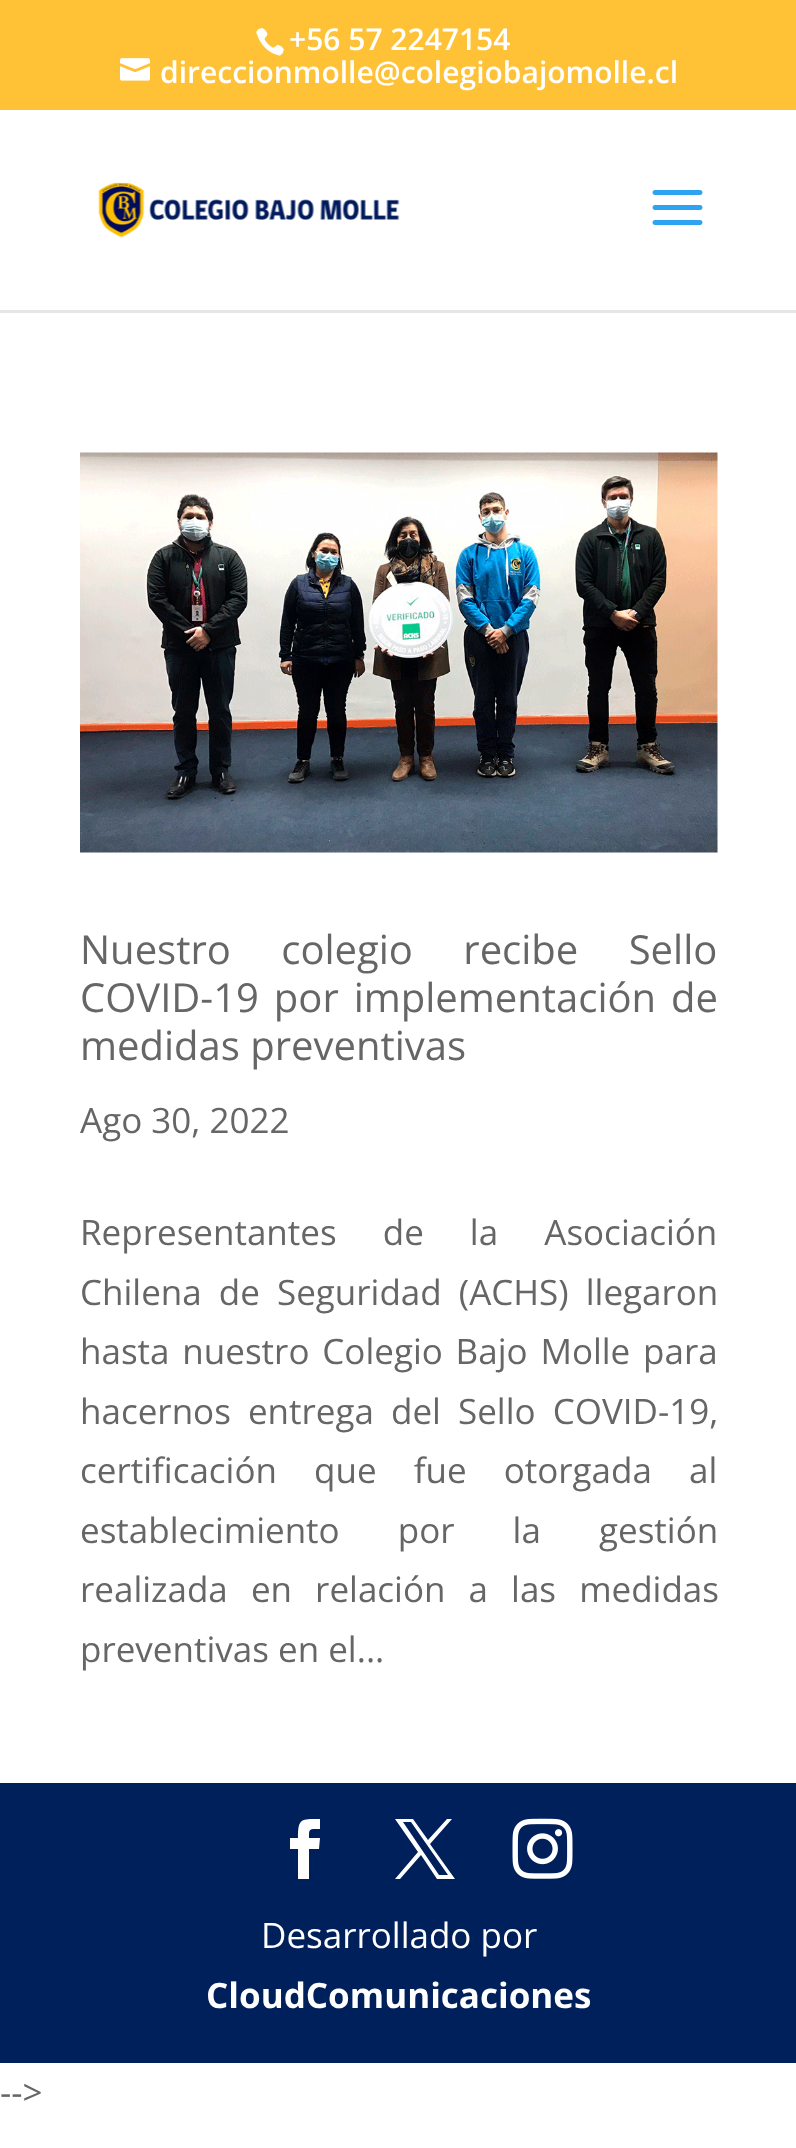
<?xml version="1.0" encoding="UTF-8"?>
<svg xmlns="http://www.w3.org/2000/svg" xmlns:xlink="http://www.w3.org/1999/xlink" width="796" height="2148">
  <rect width="100%" height="100%" fill="#ffffff" />
  <rect width="796" height="110" fill="#ffc237" />
  <image x="256" y="28" width="28" height="28" xlink:href="image1.png" />
  <image x="120" y="58" width="30" height="23" xlink:href="image2.png" />
  <path d="M 0 310 v 3 h 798 v -200 v 197 z" fill="#e6e6e6" />
  <image x="98" y="182" width="302" height="56" xlink:href="image3.png" />
  <image x="652" y="190" width="51" height="35" xlink:href="image4.png" />
  <image x="80" y="452" width="638" height="401" xlink:href="image5.png" />
  <rect y="1783" width="796" height="280" fill="#00205b" />
  <path d="M 298 1879 h 11 v -30 h 10 l 1 -11 h -11 c 0 -10 0 -9 11 -9 v -10 c -19 0 -22 -1 -22 19 h -8 v 11 h 8 z" fill="#ffffff" />
  <path d="M 395 1819 l 23 33 l -23 27 h 5 l 21 -24 l 16 24 h 18 l -25 -35 l 22 -25 h -5 l -19 21 l -15 -21 z m 8 3 h 8 l 37 53 h -9 z" fill="#ffffff" />
  <image x="512" y="1818" width="61" height="61" xlink:href="image6.png" />
  <text x="289" y="50" style="font-family: Open Sans; font-size: 30px; font-weight: 600; fill: #ffffff">+56 57 2247154</text>
  <text x="160" y="83" style="font-family: Open Sans; font-size: 30px; font-weight: 600; fill: #ffffff">direccionmolle@colegiobajomolle.cl</text>
  <text x="80" y="964" word-spacing="40" style="font-family: Open Sans; font-size: 40px; fill: #666666">Nuestro colegio recibe Sello</text>
  <text x="80" y="1012" word-spacing="4.5" style="font-family: Open Sans; font-size: 40px; fill: #666666">COVID-19 por implementación de</text>
  <text x="80" y="1060" style="font-family: Open Sans; font-size: 40px; fill: #666666">medidas preventivas</text>
  <text x="80" y="1133" style="font-family: Open Sans; font-size: 35px; fill: #666666">Ago 30, 2022</text>
  <text x="80" y="1245" word-spacing="37" style="font-family: Open Sans; font-size: 35px; fill: #666666">Representantes de la Asociación</text>
  <text x="80" y="1305" word-spacing="8" style="font-family: Open Sans; font-size: 35px; fill: #666666">Chilena de Seguridad (ACHS) llegaron</text>
  <text x="80" y="1364" word-spacing="3.75" style="font-family: Open Sans; font-size: 35px; fill: #666666">hasta nuestro Colegio Bajo Molle para</text>
  <text x="80" y="1424" word-spacing="8" style="font-family: Open Sans; font-size: 35px; fill: #666666">hacernos entrega del Sello COVID-19,</text>
  <text x="80" y="1483" word-spacing="28" style="font-family: Open Sans; font-size: 35px; fill: #666666">certificación que fue otorgada al</text>
  <text x="80" y="1543" word-spacing="49" style="font-family: Open Sans; font-size: 35px; fill: #666666">establecimiento por la gestión</text>
  <text x="80" y="1602" word-spacing="14" style="font-family: Open Sans; font-size: 35px; fill: #666666">realizada en relación a las medidas</text>
  <text x="80" y="1662" style="font-family: Open Sans; font-size: 35px; fill: #666666">preventivas en el...</text>
  <text x="261" y="1948" style="font-family: Open Sans; font-size: 35px; fill: #ffffff">Desarrollado por</text>
  <text x="206" y="2008" style="font-family: Open Sans; font-size: 35px; font-weight: bold; fill: #ffffff">CloudComunicaciones</text>
  <text x="0" y="2105" style="font-family: Open Sans; font-size: 35px; fill: #666666">--&gt;</text>
</svg>
